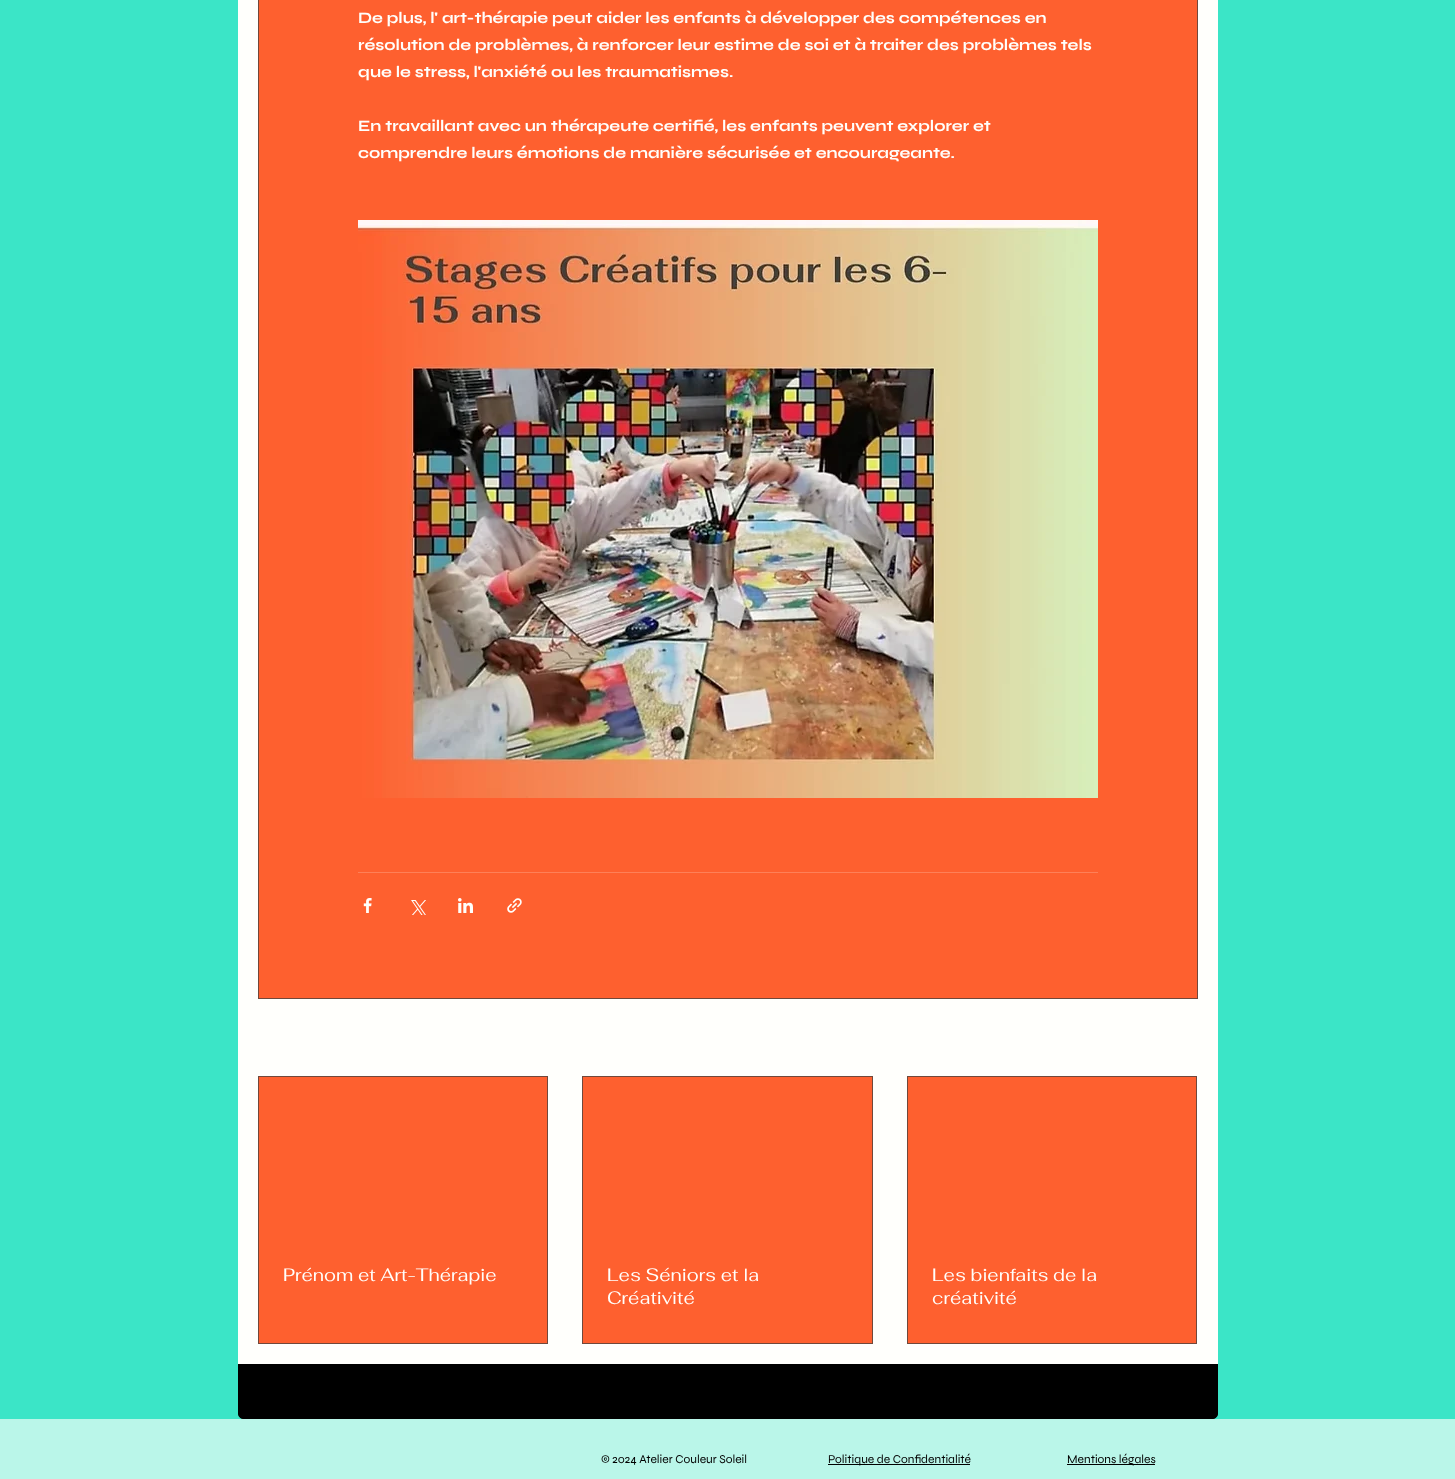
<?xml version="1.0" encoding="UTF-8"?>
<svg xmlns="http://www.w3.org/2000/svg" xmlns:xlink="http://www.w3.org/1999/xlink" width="1455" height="1479">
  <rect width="100%" height="100%" fill="#3be5c7" />
  <rect x="238.5" y="-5.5" width="979" height="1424" rx="4.5" fill="#000000" stroke="#000000" />
  <rect x="238" width="980" height="1364" fill="#fffffc" />
  <rect x="258.5" y="-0.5" width="939" height="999" fill="#fe602f" stroke="#70483b" />
  <image x="358" y="220" width="740" height="578" xlink:href="image1.png" />
  <rect x="358" y="872" width="740" height="1" fill="#fe8058" />
  <image x="363" y="898" width="9" height="15" xlink:href="image2.png" />
  <image x="411" y="900" width="15" height="15" xlink:href="image3.png" />
  <image x="458" y="898" width="15" height="15" xlink:href="image4.png" />
  <image x="507" y="898" width="15" height="15" xlink:href="image5.png" />
  <rect x="258.5" y="1076.5" width="289" height="267" fill="#fe602f" stroke="#70483b" />
  <rect x="582.5" y="1076.5" width="290" height="267" fill="#fe602f" stroke="#70483b" />
  <rect x="907.5" y="1076.5" width="289" height="267" fill="#fe602f" stroke="#70483b" />
  <rect y="1419" width="1455" height="60" fill="#baf6e9" />
  <rect x="828" y="1464" width="142" height="1" fill="#000000" />
  <rect x="1067" y="1464" width="88" height="1" fill="#000000" />
  <text x="358" y="23" style="font-family: Syne; font-size: 16px; font-weight: bold; fill: #fffffc">De plus, l' art-thérapie peut aider les enfants à développer des compétences en</text>
  <text x="358" y="50" style="font-family: Syne; font-size: 16px; font-weight: bold; fill: #fffffc">résolution de problèmes, à renforcer leur estime de soi et à traiter des problèmes tels</text>
  <text x="358" y="77" style="font-family: Syne; font-size: 16px; font-weight: bold; fill: #fffffc">que le stress, l'anxiété ou les traumatismes.</text>
  <text x="358" y="131" style="font-family: Syne; font-size: 16px; font-weight: bold; fill: #fffffc">En travaillant avec un thérapeute certifié, les enfants peuvent explorer et</text>
  <text x="358" y="158" style="font-family: Syne; font-size: 16px; font-weight: bold; fill: #fffffc">comprendre leurs émotions de manière sécurisée et encourageante.</text>
  <text x="283" y="1281" style="font-family: Fahkwang; font-size: 18px; fill: #fffffc">Prénom et Art-Thérapie</text>
  <text x="607" y="1281" style="font-family: Fahkwang; font-size: 18px; fill: #fffffc">Les Séniors et la</text>
  <text x="607" y="1304" style="font-family: Fahkwang; font-size: 18px; fill: #fffffc">Créativité</text>
  <text x="932" y="1281" style="font-family: Fahkwang; font-size: 18px; fill: #fffffc">Les bienfaits de la</text>
  <text x="932" y="1304" style="font-family: Fahkwang; font-size: 18px; fill: #fffffc">créativité</text>
  <text x="601" y="1463" style="font-family: Syne; font-size: 12px; fill: #000000">© 2024 Atelier Couleur Soleil</text>
  <text x="828" y="1463" style="font-family: Syne; font-size: 12px; fill: #000000">Politique de Confidentialité</text>
  <text x="1067" y="1463" style="font-family: Syne; font-size: 12px; fill: #000000">Mentions légales</text>
</svg>
